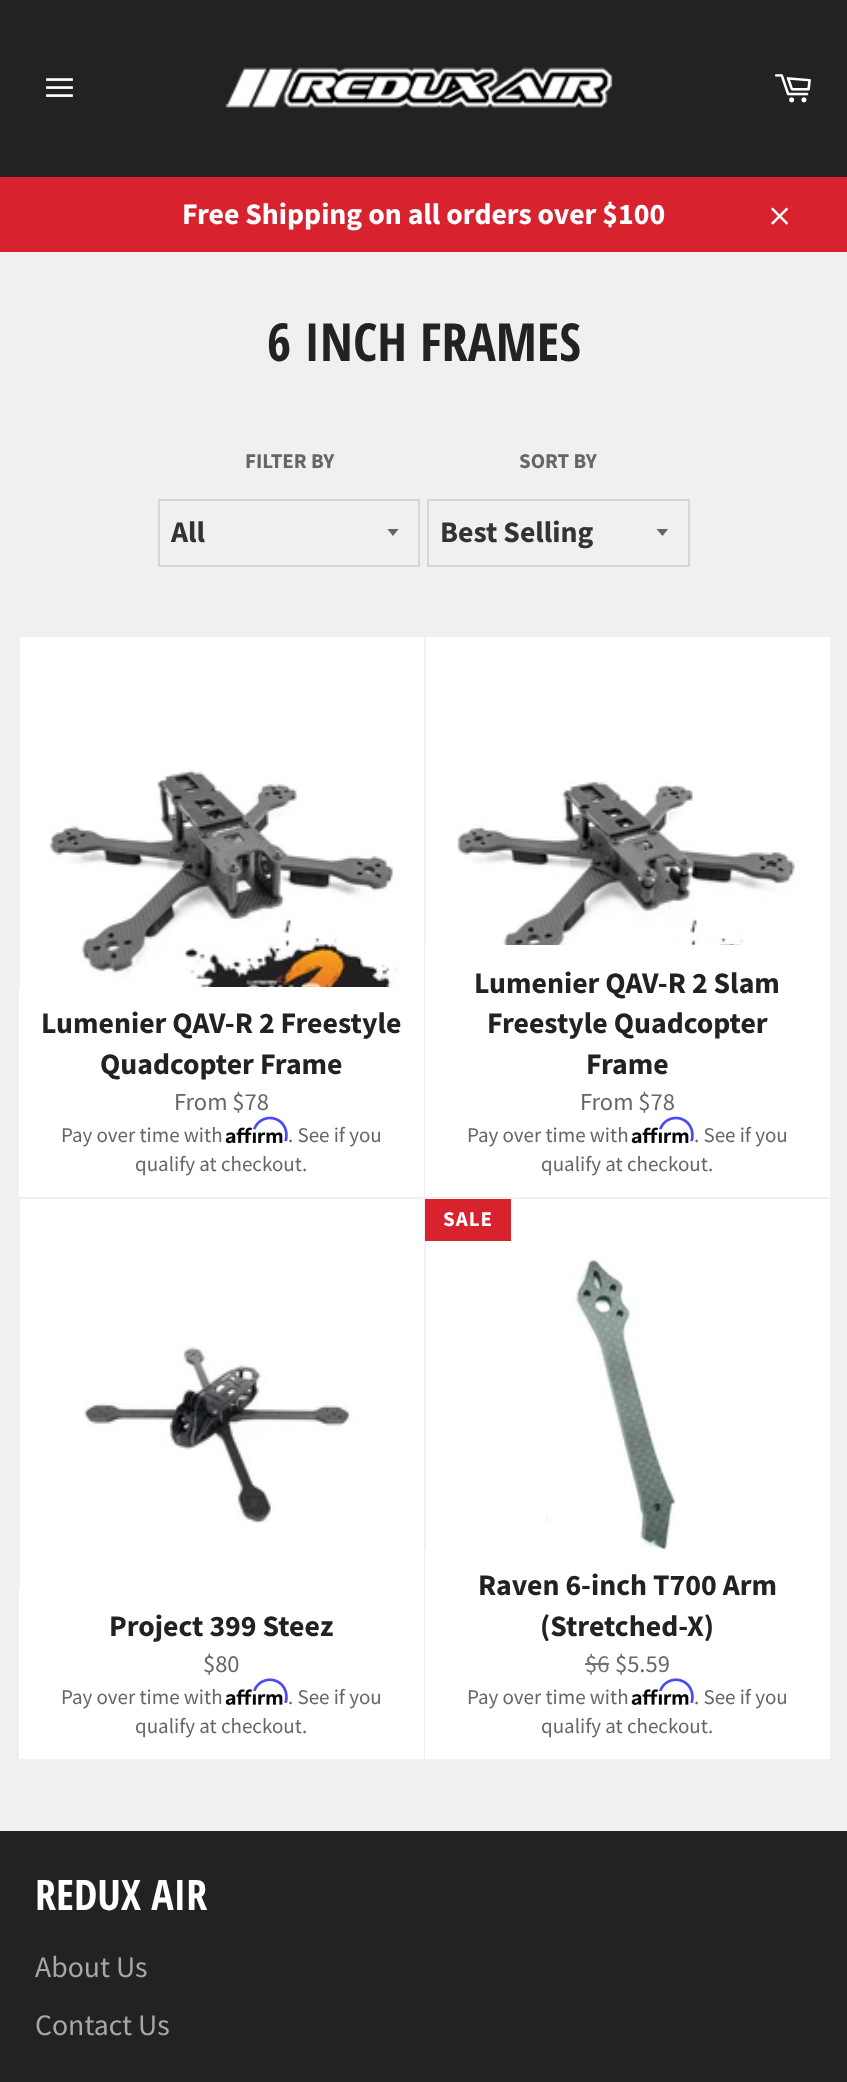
<?xml version="1.0" encoding="UTF-8"?>
<svg xmlns="http://www.w3.org/2000/svg" xmlns:xlink="http://www.w3.org/1999/xlink" width="847" height="2082">
  <defs>
    <clipPath id="clip1"><rect x="387" y="529" width="14" height="8" /></clipPath>
    <clipPath id="clip2"><rect x="656" y="529" width="14" height="8" /></clipPath>
  </defs>
  <rect width="100%" height="100%" fill="#f0f0f0" />
  <rect width="847" height="177" fill="#222222" />
  <image x="46" y="78" width="27" height="19" xlink:href="image1.png" />
  <image x="225" y="67" width="388" height="42" xlink:href="image2.png" />
  <image x="774" y="74" width="37" height="29" xlink:href="image3.png" />
  <rect y="177" width="847" height="75" fill="#d8232f" />
  <image x="771" y="207" width="18" height="18" xlink:href="image4.png" />
  <g clip-path="url(#clip1)">
    <path d="M 387 528.5 l 6 7.5 l 6 -7.5 z" fill="#666666" />
  </g>
  <rect x="159" y="500" width="260" height="66" fill="none" stroke="#d6d6d6" stroke-width="2" />
  <g clip-path="url(#clip2)">
    <path d="M 656 528.5 l 6.5 7.5 l 6 -7.5 z" fill="#666666" />
  </g>
  <rect x="428" y="500" width="261" height="66" fill="none" stroke="#d6d6d6" stroke-width="2" />
  <rect x="20" y="637" width="404" height="350" fill="#ffffff" />
  <image x="49" y="769" width="353" height="218" xlink:href="image5.png" />
  <rect x="19" y="987" width="405" height="210" fill="#ffffff" />
  <image x="225" y="1127" width="58" height="17" xlink:href="image7.png" />
  <image x="253" y="1116" width="35" height="26" xlink:href="image6.png" />
  <rect x="426" y="637" width="404" height="308" fill="#ffffff" />
  <image x="457" y="780" width="351" height="165" xlink:href="image8.png" />
  <rect x="425" y="945" width="405" height="252" fill="#ffffff" />
  <image x="631" y="1127" width="58" height="17" xlink:href="image7.png" />
  <image x="659" y="1116" width="35" height="26" xlink:href="image6.png" />
  <rect x="20" y="1199" width="404" height="390" fill="#ffffff" />
  <image x="83" y="1346" width="271" height="179" xlink:href="image9.png" />
  <rect x="19" y="1589" width="405" height="170" fill="#ffffff" />
  <image x="225" y="1689" width="58" height="16" xlink:href="image11.png" />
  <image x="253" y="1678" width="35" height="25" xlink:href="image10.png" />
  <rect x="426" y="1199" width="404" height="350" fill="#ffffff" />
  <rect x="425" y="1199" width="86" height="42" fill="#d8232f" />
  <image x="546" y="1259" width="130" height="290" xlink:href="image12.png" />
  <rect x="425" y="1549" width="405" height="210" fill="#ffffff" />
  <rect x="585" y="1663" width="24" height="2" fill="#737373" />
  <image x="631" y="1689" width="58" height="16" xlink:href="image11.png" />
  <image x="659" y="1678" width="35" height="25" xlink:href="image10.png" />
  <rect y="1831" width="847" height="251" fill="#222222" />
  <text x="182" y="224" style="font-family: Source Sans Pro; font-size: 29.75px; font-weight: bold; fill: #ffffff">Free Shipping on all orders over $100</text>
  <text x="267" y="361" style="font-family: Open Sans Condensed; font-size: 52.5px; font-weight: bold; fill: #222222">6 INCH FRAMES</text>
  <text x="245" y="468" style="font-family: Source Sans Pro; font-size: 21px; font-weight: bold; fill: #666666">FILTER BY</text>
  <text x="171" y="542" style="font-family: Source Sans Pro; font-size: 29.75px; font-weight: bold; fill: #333333">All</text>
  <text x="519" y="468" style="font-family: Source Sans Pro; font-size: 21px; font-weight: bold; fill: #666666">SORT BY</text>
  <text x="440" y="542" style="font-family: Source Sans Pro; font-size: 29.75px; font-weight: bold; fill: #333333">Best Selling</text>
  <text x="41" y="1033" style="font-family: Source Sans Pro; font-size: 29.75px; font-weight: bold; fill: #222222">Lumenier QAV-R 2 Freestyle</text>
  <text x="100" y="1074" style="font-family: Source Sans Pro; font-size: 29.75px; font-weight: bold; fill: #222222">Quadcopter Frame</text>
  <text x="174" y="1110" style="font-family: Source Sans Pro; font-size: 24.5px; fill: #666666">From $78</text>
  <text x="61" y="1142" style="font-family: Source Sans Pro; font-size: 21px; fill: #666666">Pay over time with</text>
  <text x="288" y="1142" style="font-family: Source Sans Pro; font-size: 21px; fill: #666666">. See if you</text>
  <text x="135" y="1171" style="font-family: Source Sans Pro; font-size: 21px; fill: #666666">qualify at checkout.</text>
  <text x="474" y="993" style="font-family: Source Sans Pro; font-size: 29.75px; font-weight: bold; fill: #222222">Lumenier QAV-R 2 Slam</text>
  <text x="487" y="1033" style="font-family: Source Sans Pro; font-size: 29.75px; font-weight: bold; fill: #222222">Freestyle Quadcopter</text>
  <text x="586" y="1074" style="font-family: Source Sans Pro; font-size: 29.75px; font-weight: bold; fill: #222222">Frame</text>
  <text x="580" y="1110" style="font-family: Source Sans Pro; font-size: 24.5px; fill: #666666">From $78</text>
  <text x="467" y="1142" style="font-family: Source Sans Pro; font-size: 21px; fill: #666666">Pay over time with</text>
  <text x="694" y="1142" style="font-family: Source Sans Pro; font-size: 21px; fill: #666666">. See if you</text>
  <text x="541" y="1171" style="font-family: Source Sans Pro; font-size: 21px; fill: #666666">qualify at checkout.</text>
  <text x="109" y="1636" style="font-family: Source Sans Pro; font-size: 29.75px; font-weight: bold; fill: #222222">Project 399 Steez</text>
  <text x="203" y="1672" style="font-family: Source Sans Pro; font-size: 24.5px; fill: #666666">$80</text>
  <text x="61" y="1704" style="font-family: Source Sans Pro; font-size: 21px; fill: #666666">Pay over time with</text>
  <text x="288" y="1704" style="font-family: Source Sans Pro; font-size: 21px; fill: #666666">. See if you</text>
  <text x="135" y="1733" style="font-family: Source Sans Pro; font-size: 21px; fill: #666666">qualify at checkout.</text>
  <text x="443" y="1226" style="font-family: Source Sans Pro; font-size: 21px; font-weight: bold; letter-spacing: 1px; fill: #ffffff">SALE</text>
  <text x="478" y="1595" style="font-family: Source Sans Pro; font-size: 29.75px; font-weight: bold; fill: #222222">Raven 6-inch T700 Arm</text>
  <text x="540" y="1636" style="font-family: Source Sans Pro; font-size: 29.75px; font-weight: bold; fill: #222222">(Stretched-X)</text>
  <text x="585" y="1672" style="font-family: Source Sans Pro; font-size: 24.5px; fill: #737373">$6</text>
  <text x="615" y="1672" style="font-family: Source Sans Pro; font-size: 24.5px; fill: #666666">$5.59</text>
  <text x="467" y="1704" style="font-family: Source Sans Pro; font-size: 21px; fill: #666666">Pay over time with</text>
  <text x="694" y="1704" style="font-family: Source Sans Pro; font-size: 21px; fill: #666666">. See if you</text>
  <text x="541" y="1733" style="font-family: Source Sans Pro; font-size: 21px; fill: #666666">qualify at checkout.</text>
  <text x="35" y="1910" style="font-family: Open Sans Condensed; font-size: 42px; font-weight: bold; fill: #ffffff">REDUX AIR</text>
  <text x="35" y="1977" style="font-family: Source Sans Pro; font-size: 29.75px; fill: #a7a7a7">About Us</text>
  <text x="35" y="2035" style="font-family: Source Sans Pro; font-size: 29.75px; fill: #a7a7a7">Contact Us</text>
</svg>
